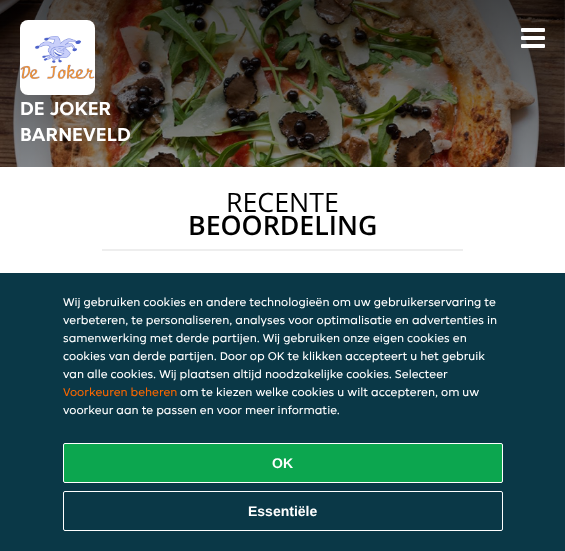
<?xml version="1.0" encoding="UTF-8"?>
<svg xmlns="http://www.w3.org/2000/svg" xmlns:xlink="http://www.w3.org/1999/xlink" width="565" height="551">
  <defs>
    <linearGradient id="g1" gradientUnits="userSpaceOnUse" x1="282" y1="0" x2="283" y2="500"><stop offset="0" stop-color="#000000" stop-opacity="0.7" /><stop offset="0.33" stop-color="#000000" stop-opacity="0.4" /><stop offset="0.67" stop-color="#000000" stop-opacity="0.2" /><stop offset="1" stop-color="#000000" stop-opacity="0" /></linearGradient>
  </defs>
  <rect width="100%" height="100%" fill="#ffffff" />
  <image x="0" y="0" width="565" height="167" xlink:href="image1.png" />
  <rect width="565" height="167" fill="url(#g1)" />
  <image x="521" y="28" width="24" height="20" xlink:href="image2.png" />
  <rect x="20" y="20" width="75" height="75" rx="8" fill="#ffffff" />
  <image x="20" y="36" width="75" height="43" xlink:href="image3.png" />
  <rect x="102" y="249" width="361" height="2" fill="#eeeeee" />
  <rect y="273" width="565" height="278" fill="#0a3847" />
  <rect x="63.5" y="443.5" width="439" height="39" rx="1.5" fill="#0ca64f" stroke="#ffffff" />
  <rect x="63.5" y="491.5" width="439" height="39" rx="1.5" fill="none" stroke="#ffffff" />
  <text x="20" y="115" style="font-family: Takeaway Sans; font-size: 20px; font-weight: bold; fill: #ffffff">DE JOKER</text>
  <text x="20" y="141" style="font-family: Takeaway Sans; font-size: 20px; font-weight: bold; fill: #ffffff">BARNEVELD</text>
  <text x="226" y="212" style="font-family: Open Sans; font-size: 26.75px; fill: #000000">RECENTE</text>
  <text x="188" y="235" style="font-family: Open Sans; font-size: 26.75px; font-weight: 600; fill: #000000">BEOORDELING</text>
  <text x="63" y="306" style="font-family: Takeaway Sans; font-size: 12px; fill: #ffffff">Wij gebruiken cookies en andere technologieën om uw gebruikerservaring te</text>
  <text x="63" y="324" style="font-family: Takeaway Sans; font-size: 12px; fill: #ffffff">verbeteren, te personaliseren, analyses voor optimalisatie en advertenties in</text>
  <text x="63" y="342" style="font-family: Takeaway Sans; font-size: 12px; fill: #ffffff">samenwerking met derde partijen. Wij gebruiken onze eigen cookies en</text>
  <text x="63" y="360" style="font-family: Takeaway Sans; font-size: 12px; fill: #ffffff">cookies van derde partijen. Door op OK te klikken accepteert u het gebruik</text>
  <text x="63" y="378" style="font-family: Takeaway Sans; font-size: 12px; fill: #ffffff">van alle cookies. Wij plaatsen altijd noodzakelijke cookies. Selecteer</text>
  <text x="63" y="396" style="font-family: Takeaway Sans; font-size: 12px; fill: #f86600">Voorkeuren beheren</text>
  <text x="180" y="396" style="font-family: Takeaway Sans; font-size: 12px; fill: #ffffff">om te kiezen welke cookies u wilt accepteren, om uw</text>
  <text x="63" y="414" style="font-family: Takeaway Sans; font-size: 12px; fill: #ffffff">voorkeur aan te passen en voor meer informatie.</text>
  <text x="272" y="468" style="font-family: Liberation Sans; font-size: 14px; font-weight: bold; fill: #ffffff">OK</text>
  <text x="248" y="516" style="font-family: Liberation Sans; font-size: 14px; font-weight: bold; fill: #ffffff">Essentiële</text>
</svg>
